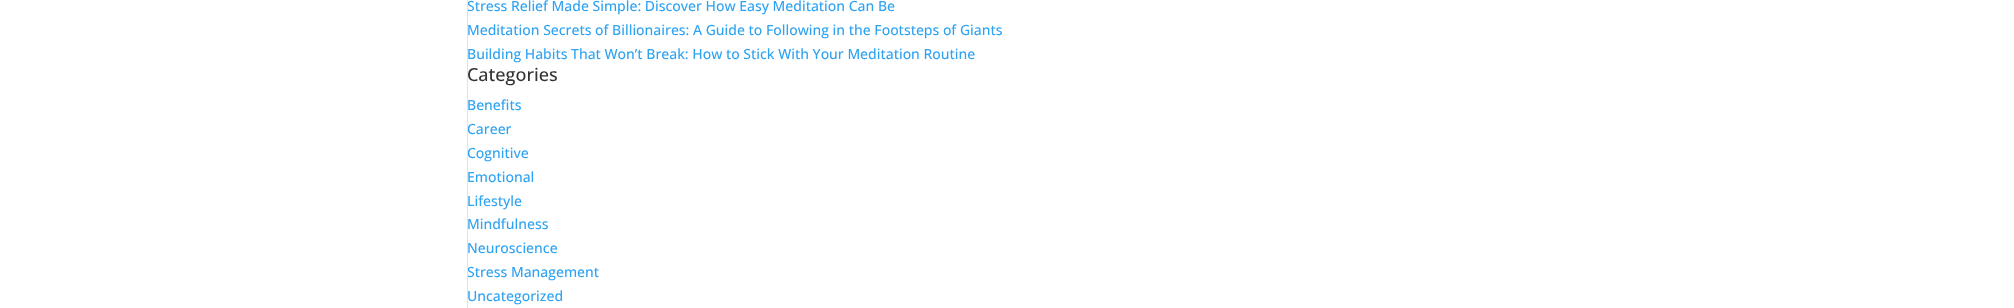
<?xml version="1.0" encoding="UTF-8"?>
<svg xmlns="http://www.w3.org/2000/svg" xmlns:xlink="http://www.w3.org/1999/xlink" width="2014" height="308">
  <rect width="100%" height="100%" fill="#ffffff" />
  <text x="467" y="11" style="font-family: Open Sans; font-size: 14px; font-weight: 500; fill: #2ea3f2">Stress Relief Made Simple: Discover How Easy Meditation Can Be</text>
  <text x="467" y="35" style="font-family: Open Sans; font-size: 14px; font-weight: 500; fill: #2ea3f2">Meditation Secrets of Billionaires: A Guide to Following in the Footsteps of Giants</text>
  <text x="467" y="59" style="font-family: Open Sans; font-size: 14px; font-weight: 500; fill: #2ea3f2">Building Habits That Won’t Break: How to Stick With Your Meditation Routine</text>
  <text x="467" y="81" style="font-family: Open Sans; font-size: 18px; font-weight: 500; fill: #333333">Categories</text>
  <text x="467" y="110" style="font-family: Open Sans; font-size: 14px; font-weight: 500; fill: #2ea3f2">Benefits</text>
  <text x="467" y="134" style="font-family: Open Sans; font-size: 14px; font-weight: 500; fill: #2ea3f2">Career</text>
  <text x="467" y="158" style="font-family: Open Sans; font-size: 14px; font-weight: 500; fill: #2ea3f2">Cognitive</text>
  <text x="467" y="182" style="font-family: Open Sans; font-size: 14px; font-weight: 500; fill: #2ea3f2">Emotional</text>
  <text x="467" y="206" style="font-family: Open Sans; font-size: 14px; font-weight: 500; fill: #2ea3f2">Lifestyle</text>
  <text x="467" y="229" style="font-family: Open Sans; font-size: 14px; font-weight: 500; fill: #2ea3f2">Mindfulness</text>
  <text x="467" y="253" style="font-family: Open Sans; font-size: 14px; font-weight: 500; fill: #2ea3f2">Neuroscience</text>
  <text x="467" y="277" style="font-family: Open Sans; font-size: 14px; font-weight: 500; fill: #2ea3f2">Stress Management</text>
  <text x="467" y="301" style="font-family: Open Sans; font-size: 14px; font-weight: 500; fill: #2ea3f2">Uncategorized</text>
  <rect x="467" width="1" height="308" fill="#e2e2e2" />
</svg>
